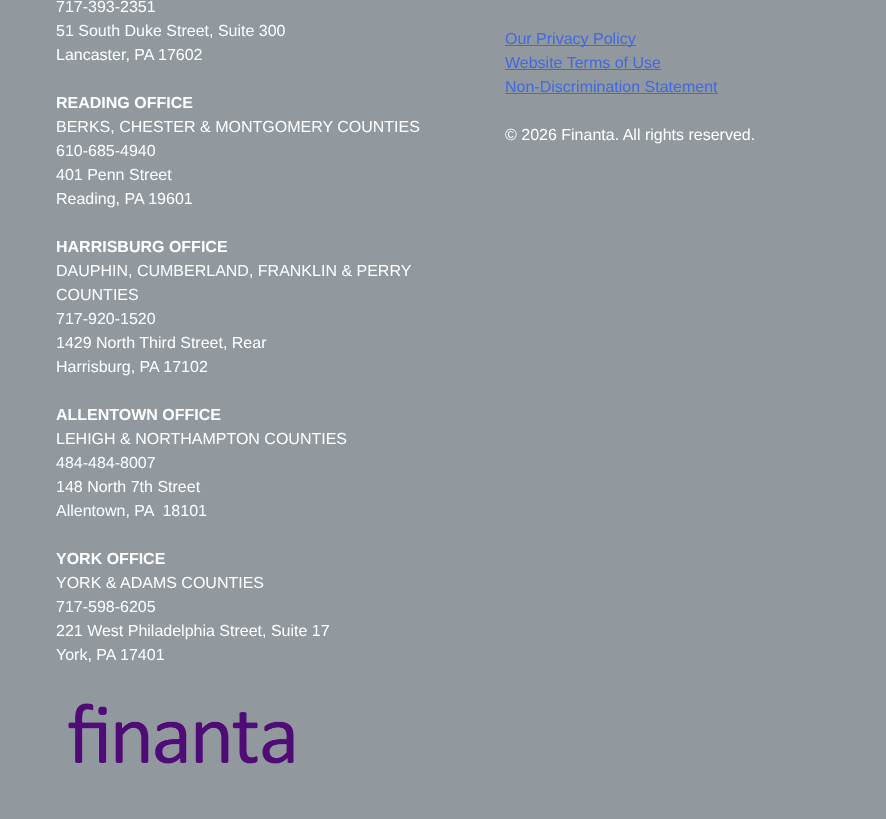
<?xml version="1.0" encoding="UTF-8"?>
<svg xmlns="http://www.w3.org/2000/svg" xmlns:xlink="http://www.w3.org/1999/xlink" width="886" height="819">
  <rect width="100%" height="100%" fill="#91999f" />
  <image x="68" y="703" width="226" height="61" xlink:href="image1.png" />
  <rect x="505" y="45" width="131" height="1" fill="#4169e1" />
  <rect x="505" y="69" width="156" height="1" fill="#4169e1" />
  <rect x="505" y="93" width="213" height="1" fill="#4169e1" />
  <text x="56" y="12" style="font-family: Arimo; font-size: 16px; fill: #ffffff">717-393-2351</text>
  <text x="56" y="36" style="font-family: Arimo; font-size: 16px; fill: #ffffff">51 South Duke Street, Suite 300</text>
  <text x="56" y="60" style="font-family: Arimo; font-size: 16px; fill: #ffffff">Lancaster, PA 17602</text>
  <text x="56" y="108" style="font-family: Arimo; font-size: 16px; font-weight: bold; fill: #ffffff">READING OFFICE</text>
  <text x="56" y="132" style="font-family: Arimo; font-size: 16px; fill: #ffffff">BERKS, CHESTER &amp; MONTGOMERY COUNTIES</text>
  <text x="56" y="156" style="font-family: Arimo; font-size: 16px; fill: #ffffff">610-685-4940</text>
  <text x="56" y="180" style="font-family: Arimo; font-size: 16px; fill: #ffffff">401 Penn Street</text>
  <text x="56" y="204" style="font-family: Arimo; font-size: 16px; fill: #ffffff">Reading, PA 19601</text>
  <text x="56" y="252" style="font-family: Arimo; font-size: 16px; font-weight: bold; fill: #ffffff">HARRISBURG OFFICE</text>
  <text x="56" y="276" style="font-family: Arimo; font-size: 16px; fill: #ffffff">DAUPHIN, CUMBERLAND, FRANKLIN &amp; PERRY</text>
  <text x="56" y="300" style="font-family: Arimo; font-size: 16px; fill: #ffffff">COUNTIES</text>
  <text x="56" y="324" style="font-family: Arimo; font-size: 16px; fill: #ffffff">717-920-1520</text>
  <text x="56" y="348" style="font-family: Arimo; font-size: 16px; fill: #ffffff">1429 North Third Street, Rear</text>
  <text x="56" y="372" style="font-family: Arimo; font-size: 16px; fill: #ffffff">Harrisburg, PA 17102</text>
  <text x="56" y="420" style="font-family: Arimo; font-size: 16px; font-weight: bold; fill: #ffffff">ALLENTOWN OFFICE</text>
  <text x="56" y="444" style="font-family: Arimo; font-size: 16px; fill: #ffffff">LEHIGH &amp; NORTHAMPTON COUNTIES</text>
  <text x="56" y="468" style="font-family: Arimo; font-size: 16px; fill: #ffffff">484-484-8007</text>
  <text x="56" y="492" style="font-family: Arimo; font-size: 16px; fill: #ffffff">148 North 7th Street</text>
  <text x="56" y="516" style="font-family: Arimo; font-size: 16px; fill: #ffffff" xml:space="preserve">Allentown, PA  18101</text>
  <text x="56" y="564" style="font-family: Arimo; font-size: 16px; font-weight: bold; fill: #ffffff">YORK OFFICE</text>
  <text x="56" y="588" style="font-family: Arimo; font-size: 16px; fill: #ffffff">YORK &amp; ADAMS COUNTIES</text>
  <text x="56" y="612" style="font-family: Arimo; font-size: 16px; fill: #ffffff">717-598-6205</text>
  <text x="56" y="636" style="font-family: Arimo; font-size: 16px; fill: #ffffff">221 West Philadelphia Street, Suite 17</text>
  <text x="56" y="660" style="font-family: Arimo; font-size: 16px; fill: #ffffff">York, PA 17401</text>
  <text x="505" y="44" style="font-family: Arimo; font-size: 16px; fill: #4169e1">Our Privacy Policy</text>
  <text x="505" y="68" style="font-family: Arimo; font-size: 16px; fill: #4169e1">Website Terms of Use</text>
  <text x="505" y="92" style="font-family: Arimo; font-size: 16px; fill: #4169e1">Non-Discrimination Statement</text>
  <text x="505" y="140" style="font-family: Arimo; font-size: 16px; fill: #ffffff">© 2026 Finanta. All rights reserved.</text>
</svg>
